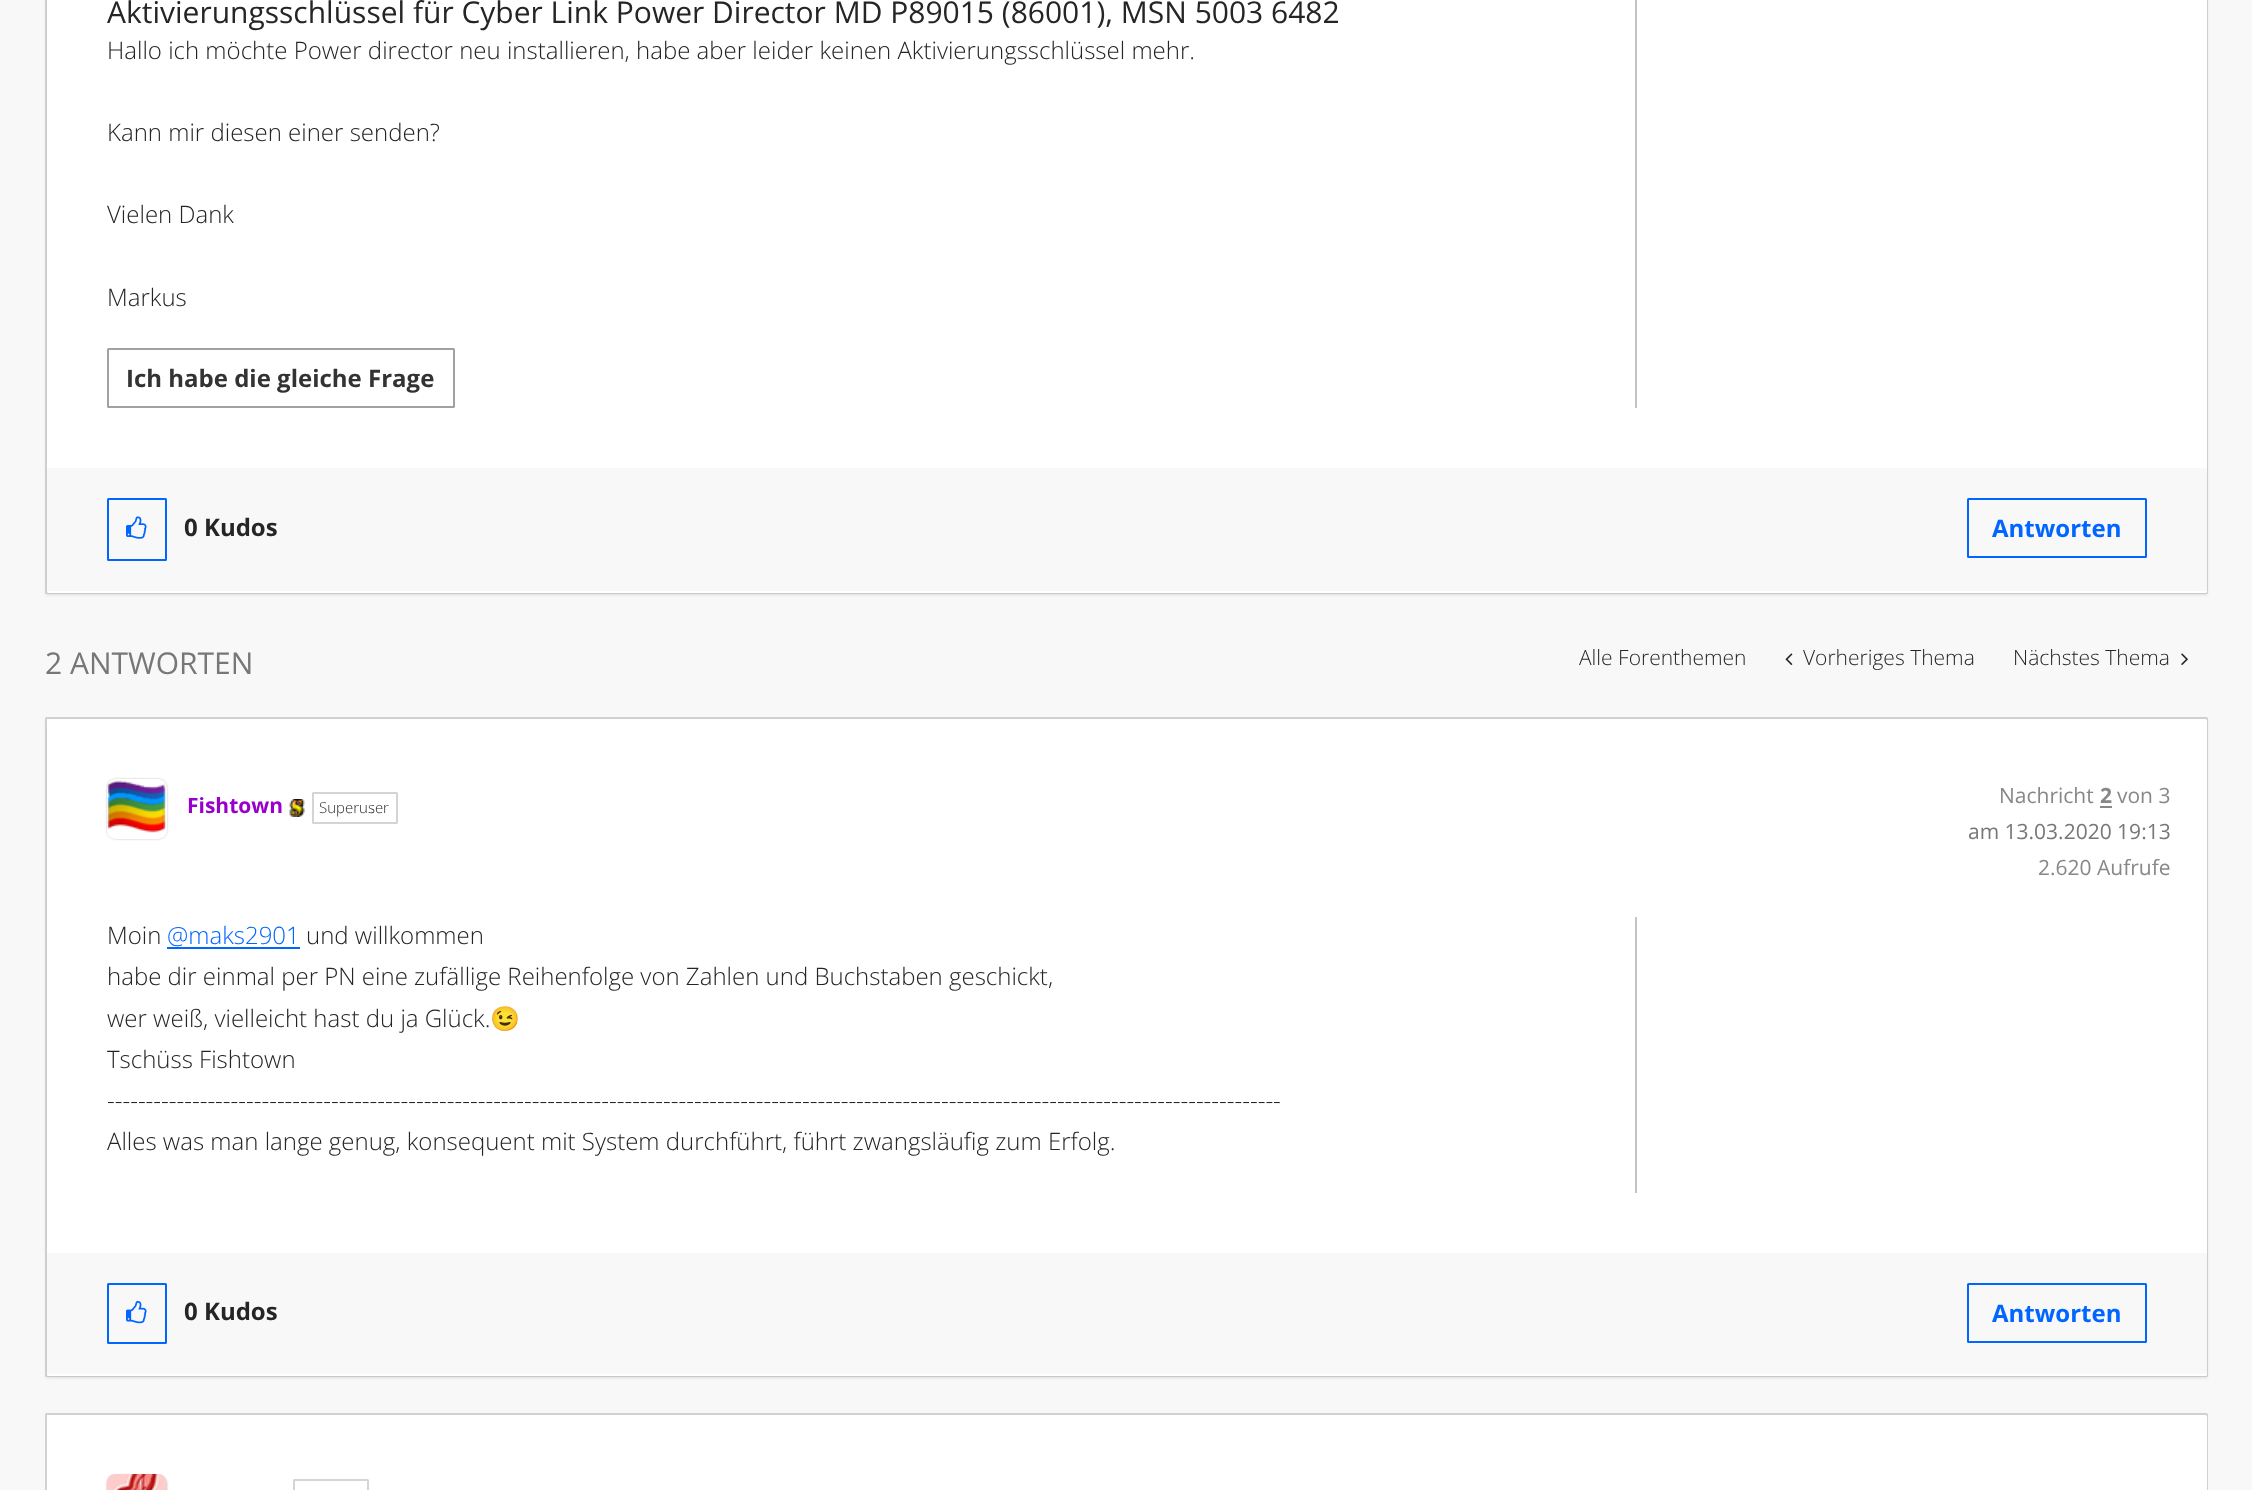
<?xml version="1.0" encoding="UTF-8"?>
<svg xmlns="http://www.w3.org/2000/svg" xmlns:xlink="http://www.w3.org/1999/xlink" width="2252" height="1490">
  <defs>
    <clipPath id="clip1"><path d="M 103 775 h 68 v 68 h -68 z m 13 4 h 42 c 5 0 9 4 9 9 v 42 c 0 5 -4 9 -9 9 h -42 c -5 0 -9 -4 -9 -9 v -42 c 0 -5 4 -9 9 -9 z" clip-rule="evenodd" /></clipPath>
  </defs>
  <rect width="100%" height="100%" fill="#f8f8f8" />
  <rect x="45" y="-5" width="2163" height="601" rx="1.5" fill="#000000" fill-opacity="0.05" filter="blur(1px)" />
  <rect x="46" y="-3" width="2161" height="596" rx="0.5" fill="none" stroke="#d1d1d1" stroke-width="2" />
  <rect x="47" y="-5" width="2160" height="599" rx="1.5" fill="#000000" fill-opacity="0.05" filter="blur(1px)" />
  <rect x="47" y="-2" width="2160" height="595" rx="1.5" fill="#ffffff" />
  <rect x="1635" width="2" height="408" fill="#c4c4c4" />
  <rect x="108" y="349" width="346" height="58" rx="0.5" fill="none" stroke="#a1a1a1" stroke-width="2" />
  <rect x="47" y="468" width="2160" height="123" rx="1.5" fill="#f8f8f8" />
  <rect x="108" y="499" width="58" height="61" rx="0.5" fill="none" stroke="#0066ff" stroke-width="2" />
  <image x="126" y="516" width="21" height="23" xlink:href="image1.png" />
  <rect x="1968" y="499" width="178" height="58" rx="0.5" fill="none" stroke="#0066ff" stroke-width="2" />
  <image x="1785" y="653" width="8" height="12" xlink:href="image2.png" />
  <image x="2181" y="653" width="7" height="12" xlink:href="image3.png" />
  <rect x="45" y="719" width="2163" height="660" rx="1.5" fill="#000000" fill-opacity="0.05" filter="blur(1px)" />
  <rect x="46" y="718" width="2161" height="658" rx="0.5" fill="#ffffff" stroke="#d1d1d1" stroke-width="2" />
  <rect x="47" y="720" width="2160" height="657" rx="1.5" fill="#000000" fill-opacity="0.05" filter="blur(1px)" />
  <rect x="47" y="719" width="2160" height="657" rx="1.5" fill="#ffffff" />
  <g clip-path="url(#clip1)">
    <rect x="107" y="779" width="60" height="60" rx="9" fill="#c4c4c4" filter="blur(1px)" />
  </g>
  <image x="107" y="780" width="59" height="53" xlink:href="image4.png" />
  <image x="289" y="799" width="16" height="18" xlink:href="image5.png" />
  <rect x="313" y="793" width="84" height="30" rx="0.5" fill="none" stroke="#d4d4d4" stroke-width="2" />
  <rect x="2100" y="806" width="12" height="2" fill="#888888" />
  <rect x="1635" y="917" width="2" height="276" fill="#c4c4c4" />
  <rect x="167" y="947" width="133" height="2" fill="#0066ff" />
  <rect x="47" y="1253" width="2160" height="121" rx="1.5" fill="#f8f8f8" />
  <rect x="108" y="1284" width="58" height="59" rx="0.5" fill="none" stroke="#0066ff" stroke-width="2" />
  <image x="126" y="1300" width="21" height="24" xlink:href="image6.png" />
  <rect x="1968" y="1284" width="178" height="58" rx="0.5" fill="none" stroke="#0066ff" stroke-width="2" />
  <rect x="46" y="1414" width="2161" height="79" rx="0.5" fill="#ffffff" stroke="#d1d1d1" stroke-width="2" />
  <rect x="47" y="1415" width="2160" height="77" rx="1.5" fill="#ffffff" />
  <rect x="107" y="1475" width="60" height="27" rx="9" fill="#c4c4c4" filter="blur(1px)" />
  <image x="106" y="1474" width="61" height="16" xlink:href="image7.png" />
  <rect x="294" y="1480" width="74" height="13" rx="0.5" fill="none" stroke="#d4d4d4" stroke-width="2" />
  <text x="107" y="23" style="font-family: Open Sans; font-size: 30px; fill: #252525">Aktivierungsschlüssel für Cyber Link Power Director MD P89015 (86001), MSN 5003 6482</text>
  <text x="107" y="59" style="font-family: Open Sans; font-size: 24px; font-weight: 300; fill: #252525">Hallo ich möchte Power director neu installieren, habe aber leider keinen Aktivierungsschlüssel mehr.</text>
  <text x="107" y="141" style="font-family: Open Sans; font-size: 24px; font-weight: 300; fill: #252525">Kann mir diesen einer senden?</text>
  <text x="107" y="223" style="font-family: Open Sans; font-size: 24px; font-weight: 300; fill: #252525">Vielen Dank</text>
  <text x="107" y="306" style="font-family: Open Sans; font-size: 24px; font-weight: 300; fill: #252525">Markus</text>
  <text x="126" y="387" style="font-family: Open Sans; font-size: 24px; font-weight: bold; fill: #333333">Ich habe die gleiche Frage</text>
  <text x="184" y="536" style="font-family: Open Sans; font-size: 24px; font-weight: bold; fill: #252525">0 Kudos</text>
  <text x="1992" y="537" style="font-family: Open Sans; font-size: 24px; font-weight: bold; fill: #0066ff">Antworten</text>
  <text x="45" y="674" style="font-family: Open Sans; font-size: 30px; fill: #777777">2 ANTWORTEN</text>
  <text x="1579" y="665" style="font-family: Open Sans; font-size: 21px; font-weight: 300; fill: #252525">Alle Forenthemen</text>
  <text x="1803" y="665" style="font-family: Open Sans; font-size: 21px; font-weight: 300; fill: #252525">Vorheriges Thema</text>
  <text x="2013" y="665" style="font-family: Open Sans; font-size: 21px; font-weight: 300; fill: #252525">Nächstes Thema</text>
  <text x="187" y="813" style="font-family: Open Sans; font-size: 21px; font-weight: bold; fill: #9900cc">Fishtown</text>
  <text x="319" y="813" style="font-family: Open Sans; font-size: 15px; font-weight: 300; fill: #252525">Superuser</text>
  <text x="1999" y="803" style="font-family: Open Sans; font-size: 21px; fill: #888888">Nachricht</text>
  <text x="2100" y="803" style="font-family: Open Sans; font-size: 21px; font-weight: bold; fill: #888888">2</text>
  <text x="2117" y="803" style="font-family: Open Sans; font-size: 21px; fill: #888888">von 3</text>
  <text x="1968" y="839" style="font-family: Open Sans; font-size: 21px; fill: #777777">am 13.03.2020 19:13</text>
  <text x="2038" y="875" style="font-family: Open Sans; font-size: 21px; fill: #888888">2.620 Aufrufe</text>
  <text x="107" y="944" style="font-family: Open Sans; font-size: 24px; font-weight: 300; fill: #252525">Moin</text>
  <text x="167" y="944" style="font-family: Open Sans; font-size: 24px; font-weight: 300; fill: #0066ff">@maks2901</text>
  <text x="306" y="944" style="font-family: Open Sans; font-size: 24px; font-weight: 300; fill: #252525">und willkommen</text>
  <text x="107" y="985" style="font-family: Open Sans; font-size: 24px; font-weight: 300; fill: #252525">habe dir einmal per PN eine zufällige Reihenfolge von Zahlen und Buchstaben geschickt,</text>
  <text x="107" y="1027" style="font-family: Open Sans; font-size: 24px; font-weight: 300; fill: #252525">wer weiß, vielleicht hast du ja Glück.</text>
  <text x="490" y="1027" style="font-family: Noto Color Emoji; font-size: 24px; fill: #252525">😉</text>
  <text x="107" y="1068" style="font-family: Open Sans; font-size: 24px; font-weight: 300; fill: #252525">Tschüss Fishtown</text>
  <text x="107" y="1109" style="font-family: Open Sans; font-size: 24px; font-weight: 300; fill: #252525">--------------------------------------------------------------------------------------------------------------------------------------------------------</text>
  <text x="107" y="1150" style="font-family: Open Sans; font-size: 24px; font-weight: 300; fill: #252525">Alles was man lange genug, konsequent mit System durchführt, führt zwangsläufig zum Erfolg.</text>
  <text x="184" y="1320" style="font-family: Open Sans; font-size: 24px; font-weight: bold; fill: #252525">0 Kudos</text>
  <text x="1992" y="1322" style="font-family: Open Sans; font-size: 24px; font-weight: bold; fill: #0066ff">Antworten</text>
</svg>
